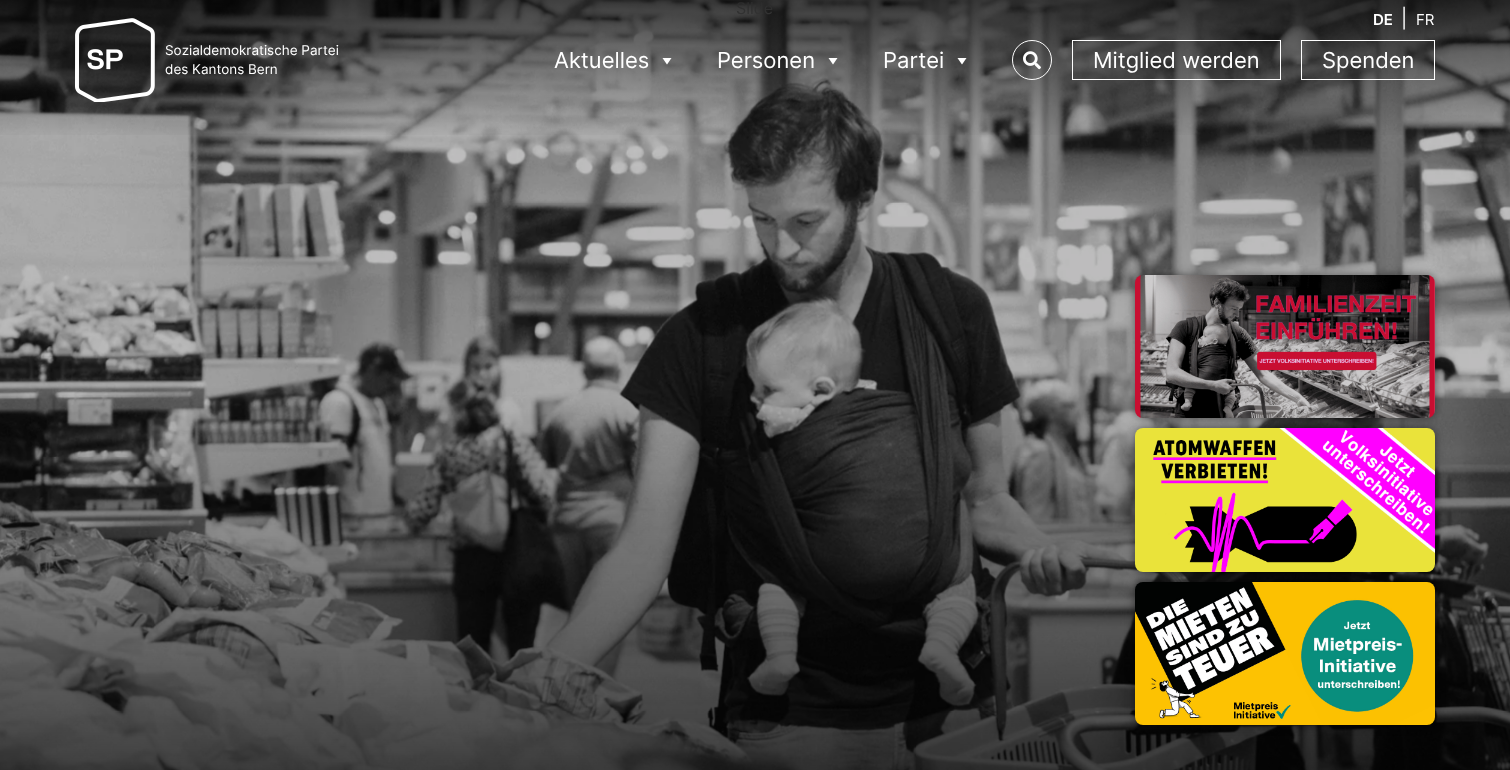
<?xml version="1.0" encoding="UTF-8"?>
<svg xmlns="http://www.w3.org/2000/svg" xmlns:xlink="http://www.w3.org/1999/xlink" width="1510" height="770">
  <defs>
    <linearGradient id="g1" gradientUnits="userSpaceOnUse" x1="755" y1="140" x2="755" y2="0"><stop offset="0" stop-color="#000000" stop-opacity="0" /><stop offset="1" stop-color="#000000" stop-opacity="0.65" /></linearGradient>
  </defs>
  <rect width="100%" height="100%" fill="#ffffff" />
  <image x="0" y="0" width="1510" height="770" xlink:href="image1.png" />
  <rect x="1135" y="275" width="300" height="143" rx="8" fill="#000000" fill-opacity="0.5" filter="blur(5px)" />
  <image x="1135" y="275" width="300" height="143" xlink:href="image2.png" />
  <rect x="1135" y="428" width="300" height="144" rx="8" fill="#000000" fill-opacity="0.5" filter="blur(5px)" />
  <image x="1135" y="428" width="300" height="144" xlink:href="image3.png" />
  <rect x="1135" y="582" width="300" height="143" rx="8" fill="#000000" fill-opacity="0.5" filter="blur(5px)" />
  <image x="1135" y="582" width="300" height="143" xlink:href="image4.png" />
  <text x="736" y="14" style="font-family: Inter; font-size: 16px; fill: #787878">Slide</text>
  <rect width="1510" height="135" fill="url(#g1)" />
  <text x="1373" y="25" style="font-family: Inter; font-size: 15px; font-weight: 600; fill: #ffffff">DE</text>
  <text x="1401" y="25" style="font-family: Inter; font-size: 19px; fill: #ffffff">|</text>
  <text x="1416" y="25" style="font-family: Inter; font-size: 15px; fill: #ffffff">FR</text>
  <image x="75" y="18" width="80" height="84" xlink:href="image5.png" />
  <text x="165" y="55" style="font-family: Inter; font-size: 13.5px; fill: #ffffff">Sozialdemokratische Partei</text>
  <text x="165" y="74" style="font-family: Inter; font-size: 13.5px; fill: #ffffff">des Kantons Bern</text>
  <text x="554" y="68" style="font-family: Inter; font-size: 22px; fill: #ffffff">Aktuelles</text>
  <path d="M 671.5 58 l -4.5 6.5 l -4.5 -6.5 z" fill="#ffffff" />
  <text x="717" y="68" style="font-family: Inter; font-size: 22px; fill: #ffffff">Personen</text>
  <path d="M 837.5 58 l -4.5 6.5 l -4.5 -6.5 z" fill="#ffffff" />
  <text x="883" y="68" style="font-family: Inter; font-size: 22px; fill: #ffffff">Partei</text>
  <path d="M 966.5 58 l -4.5 6.5 l -4.5 -6.5 z" fill="#ffffff" />
  <circle cx="1032" cy="60" r="19.5" fill="none" stroke="#ffffff" />
  <image x="1023" y="51" width="18" height="19" xlink:href="image6.png" />
  <rect x="1072.5" y="40.5" width="208" height="39" fill="none" stroke="#ffffff" />
  <text x="1093" y="68" style="font-family: Inter; font-size: 22px; fill: #ffffff">Mitglied werden</text>
  <rect x="1301.5" y="40.5" width="133" height="39" fill="none" stroke="#ffffff" />
  <text x="1322" y="68" style="font-family: Inter; font-size: 22px; fill: #ffffff">Spenden</text>
</svg>
